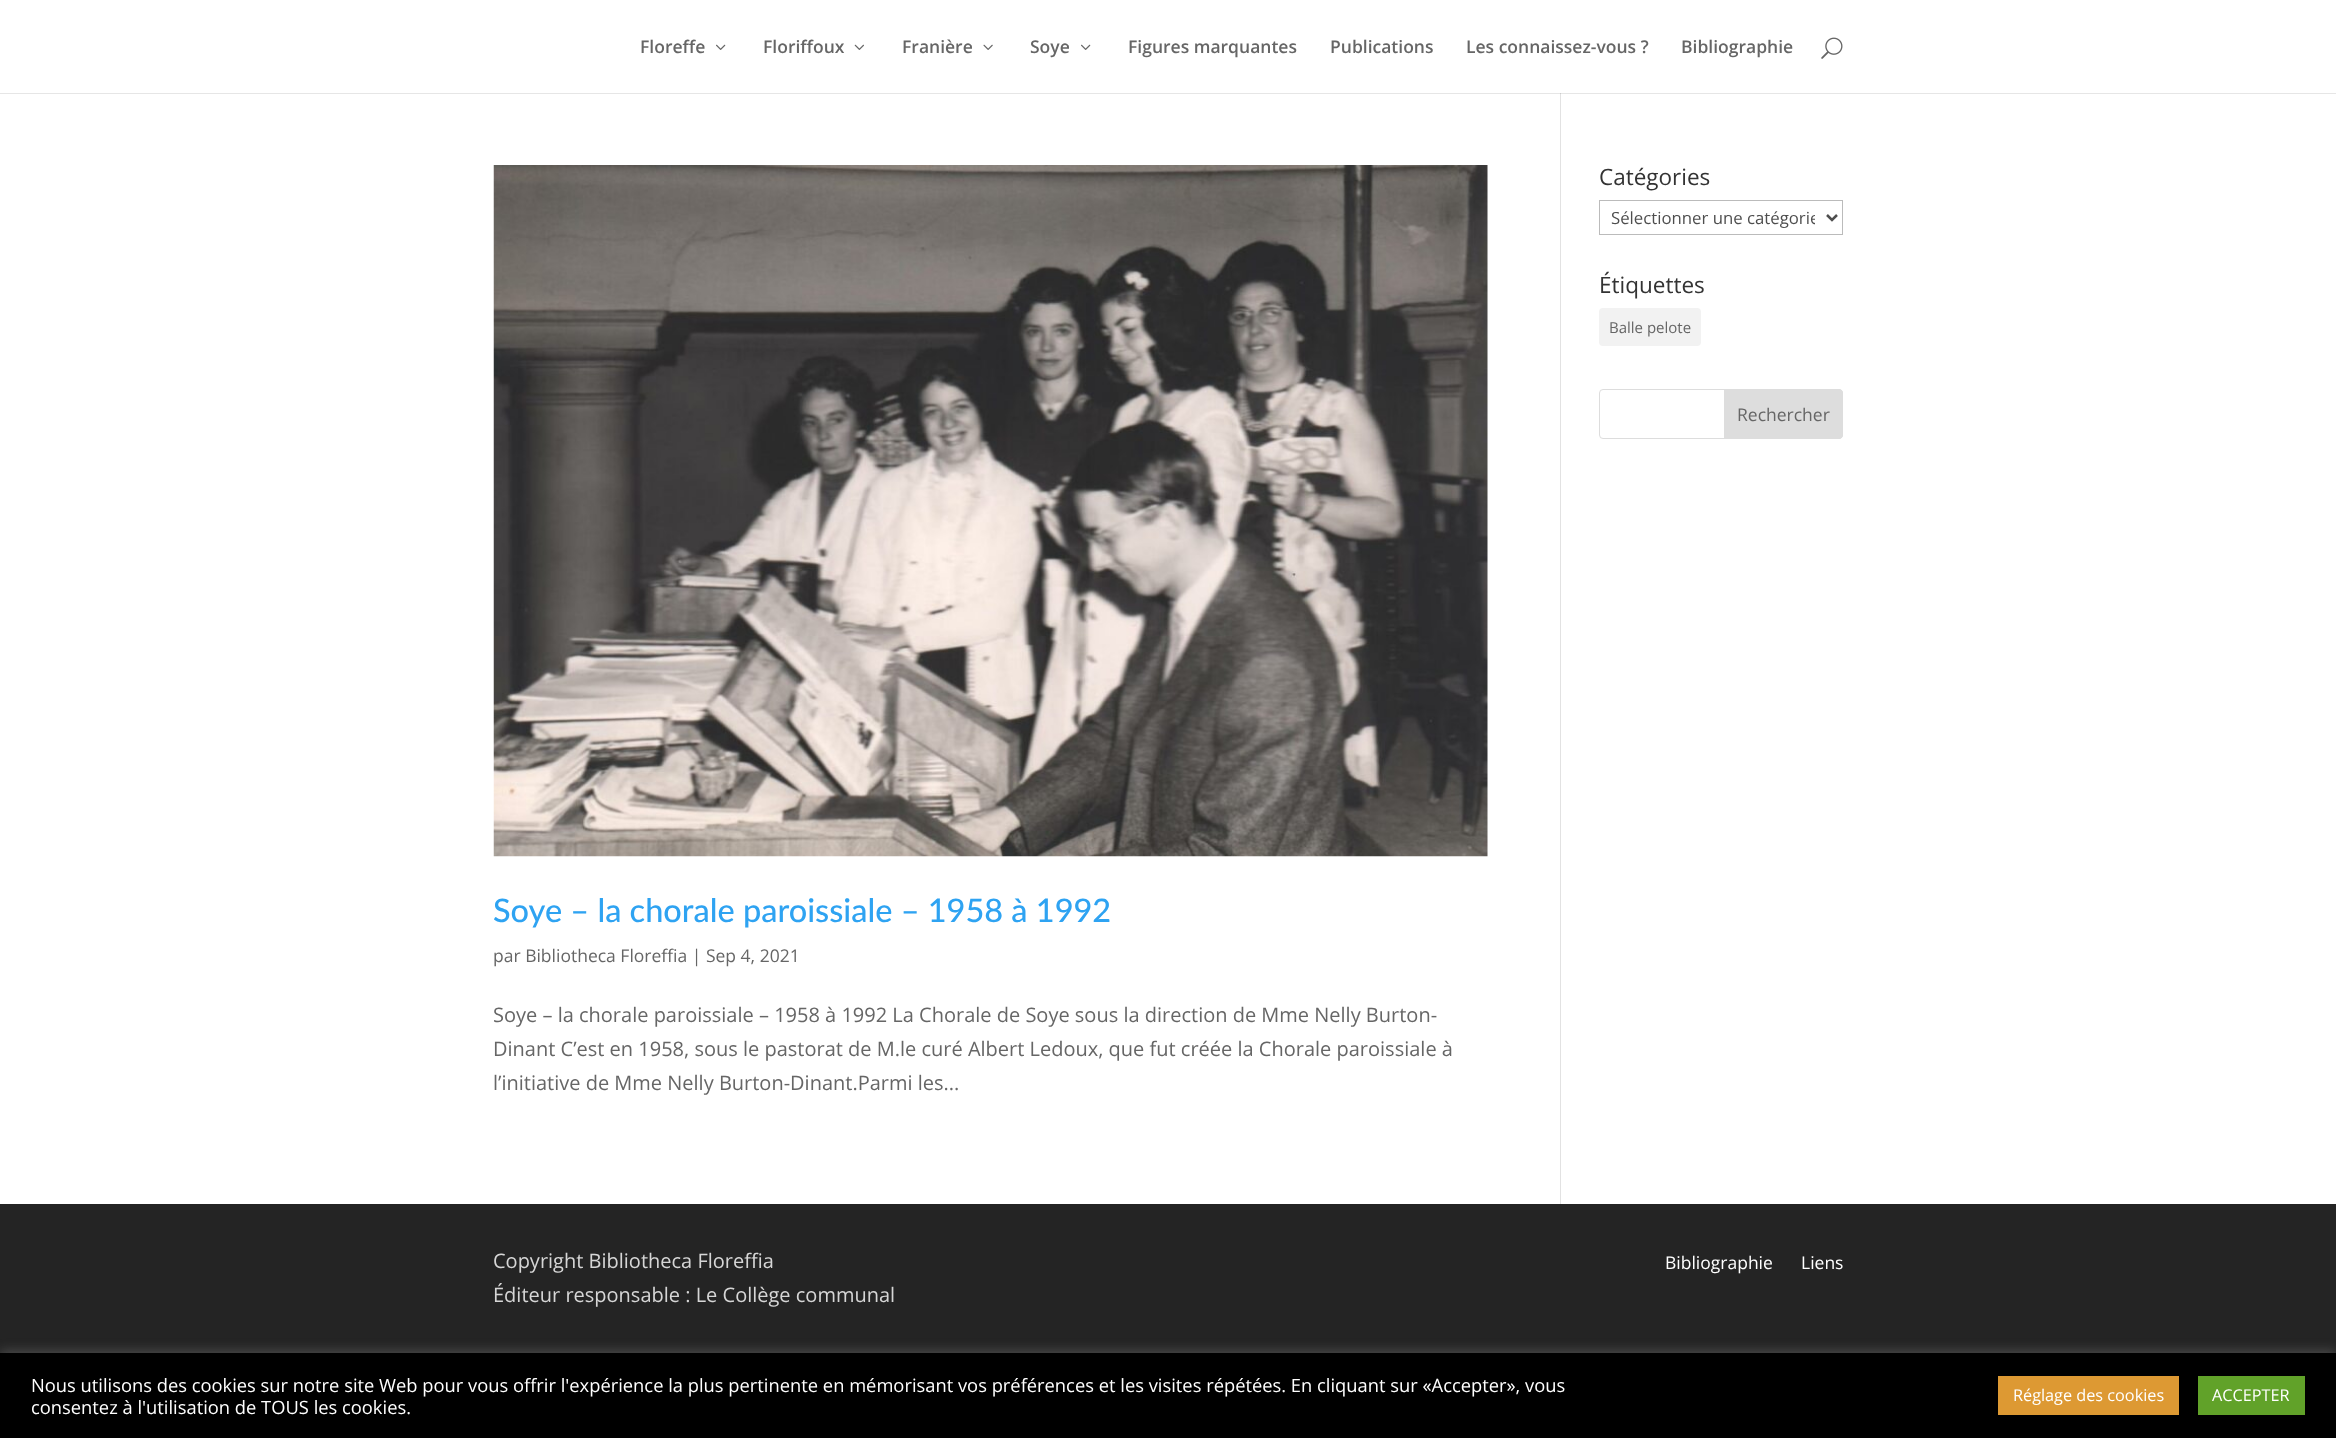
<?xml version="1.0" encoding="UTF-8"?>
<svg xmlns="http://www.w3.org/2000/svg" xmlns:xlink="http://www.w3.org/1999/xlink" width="2336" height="1438">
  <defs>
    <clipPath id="clip1"><rect x="1611" y="205" width="204" height="25" /></clipPath>
  </defs>
  <rect width="100%" height="100%" fill="#ffffff" />
  <rect y="93" width="2336" height="1" fill="#e6e6e6" />
  <image x="716" y="44" width="10" height="6" xlink:href="image1.png" />
  <image x="854" y="44" width="10" height="6" xlink:href="image2.png" />
  <image x="983" y="44" width="10" height="6" xlink:href="image3.png" />
  <image x="1081" y="44" width="10" height="6" xlink:href="image1.png" />
  <image x="1821" y="37" width="22" height="22" xlink:href="image4.png" />
  <rect x="1560" y="93" width="1" height="1111" fill="#e2e2e2" />
  <rect x="1560" y="93" width="1" height="1" fill="#cbcbcb" />
  <rect x="1599.5" y="200.5" width="243" height="34" fill="none" stroke="#bbbbbb" />
  <path d="M 1827 215 l 5 5 l 5 -5" fill="none" stroke="#4e4e4e" stroke-width="2.5" />
  <rect x="1599" y="308" width="102" height="38" rx="4" fill="#f2f2f2" />
  <rect x="1599.5" y="389.5" width="243" height="49" rx="3.5" fill="none" stroke="#dddddd" />
  <path d="M 1724.5 389.5 h 114.5 c 2 0 3.5 1.5 3.5 3.5 v 42 c 0 2 -1.5 3.5 -3.5 3.5 h -114.5 z" fill="#dddddd" stroke="#dddddd" />
  <image x="493" y="165" width="995" height="692" xlink:href="image5.png" />
  <rect y="1204" width="2336" height="149" fill="#242424" />
  <rect y="1351" width="2336" height="87" fill="#acabab" fill-opacity="0.3" filter="blur(6px)" />
  <rect y="1353" width="2336" height="85" fill="#000000" />
  <rect x="1998" y="1376" width="181" height="39" fill="#dd9933" />
  <rect x="2198" y="1376" width="107" height="39" fill="#61a229" />
  <text x="640" y="53" style="font-family: Open Sans; font-size: 17.5px; font-weight: 600; fill: #666666">Floreffe</text>
  <text x="763" y="53" style="font-family: Open Sans; font-size: 17.5px; font-weight: 600; fill: #666666">Floriffoux</text>
  <text x="902" y="53" style="font-family: Open Sans; font-size: 17.5px; font-weight: 600; fill: #666666">Franière</text>
  <text x="1030" y="53" style="font-family: Open Sans; font-size: 17.5px; font-weight: 600; fill: #666666">Soye</text>
  <text x="1128" y="53" style="font-family: Open Sans; font-size: 17.5px; font-weight: 600; fill: #666666">Figures marquantes</text>
  <text x="1330" y="53" style="font-family: Open Sans; font-size: 17.5px; font-weight: 600; fill: #666666">Publications</text>
  <text x="1466" y="53" style="font-family: Open Sans; font-size: 17.5px; font-weight: 600; fill: #666666">Les connaissez-vous ?</text>
  <text x="1681" y="53" style="font-family: Open Sans; font-size: 17.5px; font-weight: 600; fill: #666666">Bibliographie</text>
  <text x="1599" y="185" style="font-family: Open Sans; font-size: 22.5px; fill: #333333">Catégories</text>
  <g clip-path="url(#clip1)">
    <text x="1611" y="224" style="font-family: Open Sans; font-size: 16.75px; fill: #4e4e4e">Sélectionner une catégorie</text>
  </g>
  <text x="1599" y="293" style="font-family: Open Sans; font-size: 22.5px; fill: #333333">Étiquettes</text>
  <text x="1609" y="333" style="font-family: Open Sans; font-size: 15px; fill: #666666">Balle pelote</text>
  <text x="1737" y="421" style="font-family: Open Sans; font-size: 17.5px; fill: #666666">Rechercher</text>
  <text x="493" y="922" style="font-family: Lato; font-size: 32.5px; font-weight: 500; fill: #2ea3f2">Soye – la chorale paroissiale – 1958 à 1992</text>
  <text x="493" y="962" style="font-family: Open Sans; font-size: 17.5px; fill: #666666">par Bibliotheca Floreffia | Sep 4, 2021</text>
  <text x="493" y="1022" style="font-family: Open Sans; font-size: 20px; fill: #666666">Soye – la chorale paroissiale – 1958 à 1992 La Chorale de Soye sous la direction de Mme Nelly Burton-</text>
  <text x="493" y="1056" style="font-family: Open Sans; font-size: 20px; fill: #666666">Dinant C’est en 1958, sous le pastorat de M.le curé Albert Ledoux, que fut créée la Chorale paroissiale à</text>
  <text x="493" y="1090" style="font-family: Open Sans; font-size: 20px; fill: #666666">l’initiative de Mme Nelly Burton-Dinant.Parmi les...</text>
  <text x="493" y="1268" style="font-family: Open Sans; font-size: 20px; fill: #d6d6d6">Copyright Bibliotheca Floreffia</text>
  <text x="493" y="1302" style="font-family: Open Sans; font-size: 20px; fill: #d6d6d6">Éditeur responsable : Le Collège communal</text>
  <text x="1665" y="1269" style="font-family: Open Sans; font-size: 17.5px; fill: #ffffff">Bibliographie</text>
  <text x="1801" y="1269" style="font-family: Open Sans; font-size: 17.5px; fill: #ffffff">Liens</text>
  <text x="31" y="1392" style="font-family: Open Sans; font-size: 18.33px; fill: #ffffff">Nous utilisons des cookies sur notre site Web pour vous offrir l'expérience la plus pertinente en mémorisant vos préférences et les visites répétées. En cliquant sur «Accepter», vous</text>
  <text x="31" y="1414" style="font-family: Open Sans; font-size: 18.33px; fill: #ffffff">consentez à l'utilisation de TOUS les cookies.</text>
  <text x="2013" y="1401" style="font-family: Open Sans; font-size: 16.25px; fill: #ffffff">Réglage des cookies</text>
  <text x="2212" y="1401" style="font-family: Open Sans; font-size: 16.25px; fill: #ffffff">ACCEPTER</text>
</svg>
